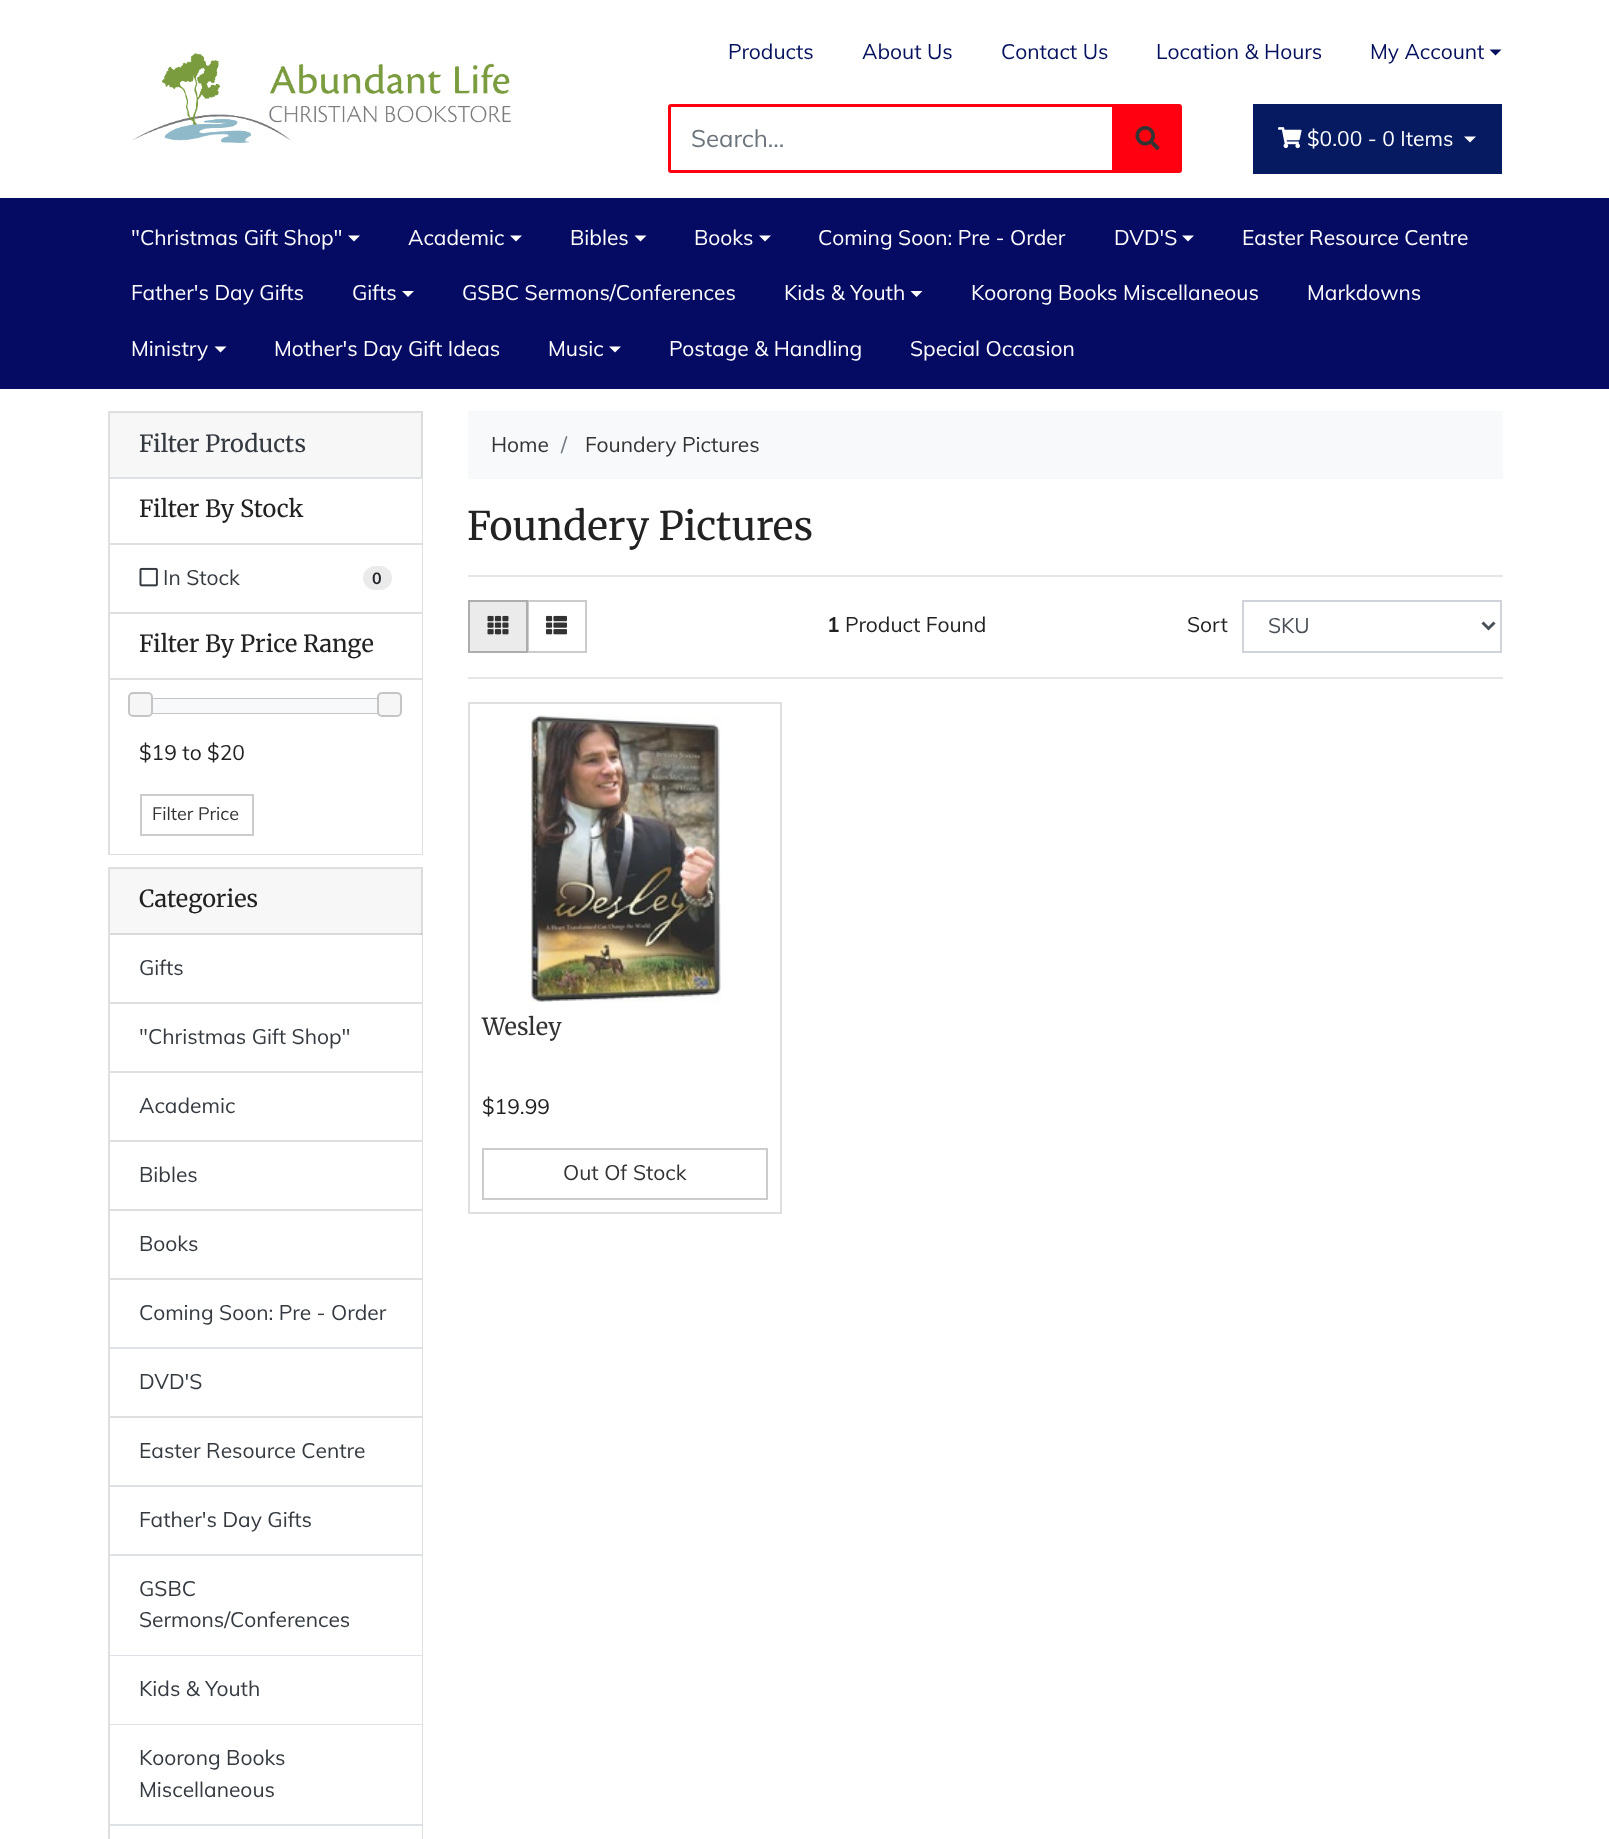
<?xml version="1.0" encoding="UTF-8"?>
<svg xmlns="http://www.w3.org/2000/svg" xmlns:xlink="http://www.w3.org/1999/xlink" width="1609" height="1839">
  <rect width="100%" height="100%" fill="#ffffff" />
  <image x="132" y="53" width="380" height="90" xlink:href="image1.png" />
  <path d="M 1489.5 49.5 h 12 l -6 6 z" fill="#05115e" />
  <path d="M 671 105.5 h 442.5 v 66 h -442.5 c -1 0 -1.5 -0.5 -1.5 -1.5 v -63 c 0 -1 0.5 -1.5 1.5 -1.5 z" fill="none" stroke="#ff0011" stroke-width="3" />
  <path d="M 1114 105 h 65 c 1 0 2 1 2 2 v 63 c 0 1 -1 2 -2 2 h -65 z" fill="#ff0011" stroke="#ff0011" stroke-width="2" />
  <image x="1135" y="126" width="25" height="24" xlink:href="image2.png" />
  <rect x="1253" y="104" width="249" height="70" fill="#051a61" />
  <image x="1278" y="127" width="24" height="22" xlink:href="image3.png" />
  <path d="M 1464 136.5 h 12 l -6 6 z" fill="#ffffff" />
  <rect y="198" width="1609" height="191" fill="#050a63" />
  <path d="M 348 235.5 h 12 l -6 6 z" fill="#ffffff" />
  <path d="M 510 235.5 h 12 l -6 6 z" fill="#ffffff" />
  <path d="M 634.5 235.5 h 12 l -6 6 z" fill="#ffffff" />
  <path d="M 759 235.5 h 12 l -6 6 z" fill="#ffffff" />
  <path d="M 1182 235.5 h 12 l -6 6 z" fill="#ffffff" />
  <path d="M 402 291 h 12 l -6 6 z" fill="#ffffff" />
  <path d="M 910.5 291 h 12 l -6 6 z" fill="#ffffff" />
  <path d="M 214.5 346.5 h 12 l -6 6 z" fill="#ffffff" />
  <path d="M 609 346.5 h 12 l -6 6 z" fill="#ffffff" />
  <rect x="109" y="412" width="313" height="442" fill="none" stroke="#dfdfdf" stroke-width="2" />
  <rect x="110" y="413" width="312" height="64" fill="#000000" fill-opacity="0.03" />
  <rect x="110" y="477" width="312" height="2" fill="#dee2e6" />
  <rect x="421" y="479" width="1" height="64" fill="#ffffff" />
  <rect x="421" y="545" width="1" height="67" fill="#ffffff" />
  <rect x="110" y="543" width="312" height="2" fill="#dfdfdf" />
  <image x="139" y="567" width="19" height="20" xlink:href="image4.png" />
  <rect x="363" y="566" width="29" height="24" rx="12" fill="#ebebeb" />
  <rect x="421" y="614" width="1" height="64" fill="#ffffff" />
  <rect x="110" y="612" width="312" height="2" fill="#dfdfdf" />
  <rect x="110" y="680" width="312" height="174" fill="#ffffff" />
  <rect x="110" y="678" width="312" height="2" fill="#dfdfdf" />
  <rect x="141" y="699" width="250" height="14" fill="none" stroke="#c5c5c5" stroke-width="2" />
  <rect x="152" y="699" width="226" height="14" fill="#f8f9fa" />
  <rect x="129" y="693" width="23" height="23" rx="4" fill="#f6f6f6" stroke="#c5c5c5" stroke-width="2" />
  <rect x="378" y="693" width="23" height="23" rx="4" fill="#f6f6f6" stroke="#c5c5c5" stroke-width="2" />
  <rect x="141" y="795" width="112" height="40" fill="none" stroke="#cccccc" stroke-width="2" />
  <rect x="109" y="868" width="313" height="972" fill="none" stroke="#dfdfdf" stroke-width="2" />
  <rect x="110" y="869" width="312" height="66" fill="#000000" fill-opacity="0.03" />
  <rect x="110" y="933" width="312" height="2" fill="#000000" fill-opacity="0.12" />
  <rect x="421" y="935" width="1" height="67" fill="#ffffff" />
  <rect x="110" y="1002" width="312" height="2" fill="#dfdfdf" />
  <rect x="421" y="1004" width="1" height="67" fill="#ffffff" />
  <rect x="110" y="1071" width="312" height="2" fill="#dfdfdf" />
  <rect x="421" y="1073" width="1" height="67" fill="#ffffff" />
  <rect x="110" y="1140" width="312" height="2" fill="#dfdfdf" />
  <rect x="421" y="1142" width="1" height="67" fill="#ffffff" />
  <rect x="110" y="1209" width="312" height="2" fill="#dfdfdf" />
  <rect x="421" y="1211" width="1" height="67" fill="#ffffff" />
  <rect x="110" y="1278" width="312" height="2" fill="#dfdfdf" />
  <rect x="110" y="1347" width="312" height="2" fill="#dee2e6" />
  <rect x="421" y="1280" width="1" height="67" fill="#ffffff" />
  <rect x="421" y="1349" width="1" height="67" fill="#ffffff" />
  <rect x="110" y="1416" width="312" height="2" fill="#dfdfdf" />
  <rect x="110" y="1485" width="312" height="2" fill="#dee2e6" />
  <rect x="421" y="1418" width="1" height="67" fill="#ffffff" />
  <rect x="110" y="1554" width="312" height="2" fill="#dee2e6" />
  <rect x="421" y="1487" width="1" height="67" fill="#ffffff" />
  <rect x="110" y="1655" width="312" height="1" fill="#dee2e6" />
  <rect x="421" y="1556" width="1" height="99" fill="#ffffff" />
  <rect x="421" y="1656" width="1" height="168" fill="#ffffff" />
  <rect x="110" y="1724" width="312" height="1" fill="#000000" fill-opacity="0.12" />
  <rect x="110" y="1824" width="312" height="2" fill="#dee2e6" />
  <rect x="421" y="1826" width="1" height="13" fill="#ffffff" />
  <rect x="468" y="411" width="1035" height="68" fill="#f8f9fa" />
  <rect x="468" y="575" width="1035" height="2" fill="#e6e6e6" />
  <rect x="528" y="601" width="58" height="51" fill="none" stroke="#cccccc" stroke-width="2" />
  <rect x="469" y="601" width="58" height="51" fill="#ebebeb" stroke="#adadad" stroke-width="2" />
  <image x="487" y="615" width="22" height="20" xlink:href="image5.png" />
  <image x="546" y="615" width="21" height="20" xlink:href="image6.png" />
  <rect x="1243" y="601" width="258" height="51" fill="none" stroke="#ced4da" stroke-width="2" />
  <path d="M 1482.5 622.5 l 6 6 l 6 -6" fill="none" stroke="#495057" stroke-width="3" />
  <rect x="468" y="677" width="1035" height="2" fill="#e6e6e6" />
  <rect x="469" y="703" width="312" height="510" fill="none" stroke="#dfdfdf" stroke-width="2" />
  <image x="528" y="715" width="195" height="287" xlink:href="image7.png" />
  <rect x="483" y="1149" width="284" height="50" fill="none" stroke="#cccccc" stroke-width="2" />
  <text x="728" y="59" style="font-family: Muli; font-size: 21px; fill: #05115e">Products</text>
  <text x="862" y="59" style="font-family: Muli; font-size: 21px; fill: #05115e">About Us</text>
  <text x="1001" y="59" style="font-family: Muli; font-size: 21px; fill: #05115e">Contact Us</text>
  <text x="1156" y="59" style="font-family: Muli; font-size: 21px; fill: #05115e">Location &amp; Hours</text>
  <text x="1370" y="59" style="font-family: Muli; font-size: 21px; fill: #05115e">My Account</text>
  <text x="691" y="147" style="font-family: Muli; font-size: 24px; fill: #6c757d">Search...</text>
  <text x="1307" y="146" style="font-family: Muli; font-size: 21px; fill: #ffffff">$0.00 - 0 Items</text>
  <text x="131" y="245" style="font-family: Muli; font-size: 21px; fill: #ffffff">"Christmas Gift Shop"</text>
  <text x="408" y="245" style="font-family: Muli; font-size: 21px; fill: #ffffff">Academic</text>
  <text x="570" y="245" style="font-family: Muli; font-size: 21px; fill: #ffffff">Bibles</text>
  <text x="694" y="245" style="font-family: Muli; font-size: 21px; fill: #ffffff">Books</text>
  <text x="818" y="245" style="font-family: Muli; font-size: 21px; fill: #ffffff">Coming Soon: Pre - Order</text>
  <text x="1114" y="245" style="font-family: Muli; font-size: 21px; fill: #ffffff">DVD'S</text>
  <text x="1242" y="245" style="font-family: Muli; font-size: 21px; fill: #ffffff">Easter Resource Centre</text>
  <text x="131" y="300" style="font-family: Muli; font-size: 21px; fill: #ffffff">Father's Day Gifts</text>
  <text x="352" y="300" style="font-family: Muli; font-size: 21px; fill: #ffffff">Gifts</text>
  <text x="462" y="300" style="font-family: Muli; font-size: 21px; fill: #ffffff">GSBC Sermons/Conferences</text>
  <text x="784" y="300" style="font-family: Muli; font-size: 21px; fill: #ffffff">Kids &amp; Youth</text>
  <text x="971" y="300" style="font-family: Muli; font-size: 21px; fill: #ffffff">Koorong Books Miscellaneous</text>
  <text x="1307" y="300" style="font-family: Muli; font-size: 21px; fill: #ffffff">Markdowns</text>
  <text x="131" y="356" style="font-family: Muli; font-size: 21px; fill: #ffffff">Ministry</text>
  <text x="274" y="356" style="font-family: Muli; font-size: 21px; fill: #ffffff">Mother's Day Gift Ideas</text>
  <text x="548" y="356" style="font-family: Muli; font-size: 21px; fill: #ffffff">Music</text>
  <text x="669" y="356" style="font-family: Muli; font-size: 21px; fill: #ffffff">Postage &amp; Handling</text>
  <text x="910" y="356" style="font-family: Muli; font-size: 21px; fill: #ffffff">Special Occasion</text>
  <text x="139" y="452" style="font-family: Merriweather; font-size: 23.6px; fill: #343a40">Filter Products</text>
  <text x="139" y="517" style="font-family: Merriweather; font-size: 23.6px; fill: #222222">Filter By Stock</text>
  <text x="163" y="585" style="font-family: Muli; font-size: 21px; fill: #343a40">In Stock</text>
  <text x="372" y="584" style="font-family: Muli; font-size: 16px; font-weight: bold; fill: #212529">0</text>
  <text x="139" y="652" style="font-family: Merriweather; font-size: 23.6px; fill: #222222">Filter By Price Range</text>
  <text x="139" y="760" style="font-family: Muli; font-size: 21px; fill: #222222">$19 to $20</text>
  <text x="152" y="820" style="font-family: Muli; font-size: 18px; fill: #333333">Filter Price</text>
  <text x="139" y="907" style="font-family: Merriweather; font-size: 23.6px; fill: #222222">Categories</text>
  <text x="139" y="975" style="font-family: Muli; font-size: 21px; fill: #343a40">Gifts</text>
  <text x="139" y="1044" style="font-family: Muli; font-size: 21px; fill: #343a40">"Christmas Gift Shop"</text>
  <text x="139" y="1113" style="font-family: Muli; font-size: 21px; fill: #343a40">Academic</text>
  <text x="139" y="1182" style="font-family: Muli; font-size: 21px; fill: #343a40">Bibles</text>
  <text x="139" y="1251" style="font-family: Muli; font-size: 21px; fill: #343a40">Books</text>
  <text x="139" y="1320" style="font-family: Muli; font-size: 21px; fill: #343a40">Coming Soon: Pre - Order</text>
  <text x="139" y="1389" style="font-family: Muli; font-size: 21px; fill: #343a40">DVD'S</text>
  <text x="139" y="1458" style="font-family: Muli; font-size: 21px; fill: #343a40">Easter Resource Centre</text>
  <text x="139" y="1527" style="font-family: Muli; font-size: 21px; fill: #343a40">Father's Day Gifts</text>
  <text x="139" y="1596" style="font-family: Muli; font-size: 21px; fill: #343a40">GSBC</text>
  <text x="139" y="1627" style="font-family: Muli; font-size: 21px; fill: #343a40">Sermons/Conferences</text>
  <text x="139" y="1696" style="font-family: Muli; font-size: 21px; fill: #343a40">Kids &amp; Youth</text>
  <text x="139" y="1765" style="font-family: Muli; font-size: 21px; fill: #343a40">Koorong Books</text>
  <text x="139" y="1797" style="font-family: Muli; font-size: 21px; fill: #343a40">Miscellaneous</text>
  <text x="491" y="452" style="font-family: Muli; font-size: 21px; fill: #333333">Home</text>
  <text x="561" y="452" style="font-family: Muli; font-size: 21px; fill: #6c757d">/</text>
  <text x="585" y="452" style="font-family: Muli; font-size: 21px; fill: #333333">Foundery Pictures</text>
  <text x="467" y="540" style="font-family: Merriweather; font-size: 39.4px; fill: #222222">Foundery Pictures</text>
  <text x="827" y="632" style="font-family: Muli; font-size: 21px; font-weight: bold; fill: #222222">1</text>
  <text x="845" y="632" style="font-family: Muli; font-size: 21px; fill: #222222">Product Found</text>
  <text x="1187" y="632" style="font-family: Muli; font-size: 21px; fill: #222222">Sort</text>
  <text x="1268" y="633" style="font-family: Muli; font-size: 21px; fill: #495057">SKU</text>
  <text x="482" y="1035" style="font-family: Merriweather; font-size: 23.6px; fill: #333333">Wesley</text>
  <text x="482" y="1114" style="font-family: Muli; font-size: 21px; fill: #222222">$19.99</text>
  <text x="563" y="1180" style="font-family: Muli; font-size: 21px; fill: #333333">Out Of Stock</text>
</svg>
